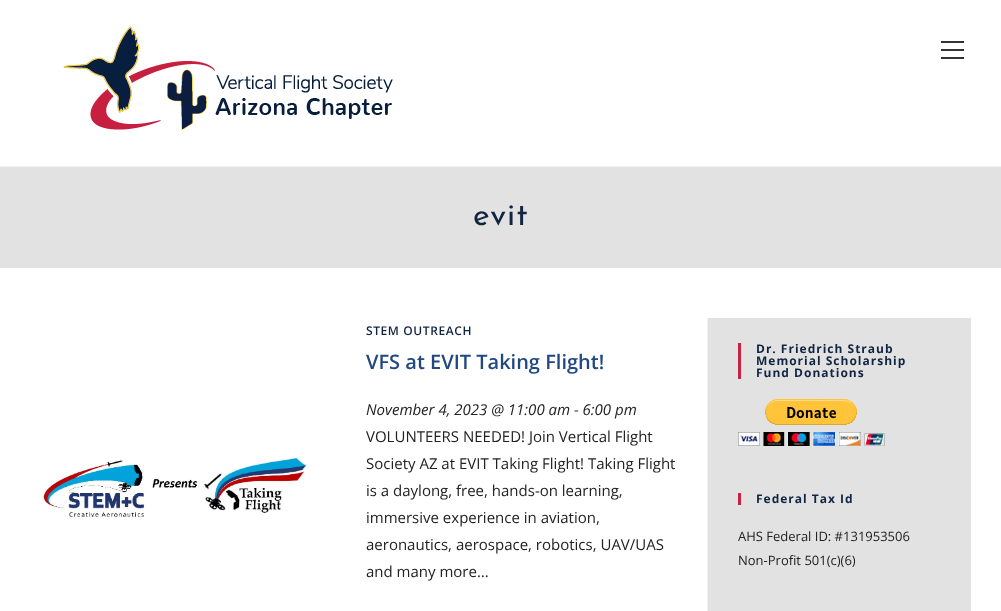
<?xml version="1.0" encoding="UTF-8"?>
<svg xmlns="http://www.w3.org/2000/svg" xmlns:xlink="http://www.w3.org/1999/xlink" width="1001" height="611">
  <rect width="100%" height="100%" fill="#ffffff" />
  <rect y="166" width="1001" height="1" fill="#f1f1f1" />
  <image x="63" y="26" width="330" height="105" xlink:href="image1.png" />
  <rect x="941" y="49" width="23" height="2" fill="#333333" />
  <rect x="941" y="41" width="23" height="2" fill="#333333" />
  <rect x="941" y="57" width="23" height="2" fill="#333333" />
  <rect y="167" width="1001" height="101" fill="#e2e2e2" />
  <rect x="707" y="318" width="1" height="293" fill="#f1f1f1" />
  <image x="42" y="457" width="265" height="60" xlink:href="image2.png" />
  <rect x="708" y="318" width="263" height="293" fill="#e2e2e2" />
  <rect x="738" y="343" width="3" height="36" fill="#c42441" />
  <image x="738" y="399" width="147" height="47" xlink:href="image3.png" />
  <rect x="738" y="493" width="3" height="12" fill="#c42441" />
  <text x="473" y="225" style="font-family: Josefin Sans; font-size: 32px; letter-spacing: 1px; fill: #112441">evit</text>
  <text x="366" y="335" style="font-family: Open Sans; font-size: 12px; font-weight: 600; letter-spacing: 0.6px; fill: #112441">STEM OUTREACH</text>
  <text x="366" y="369" style="font-family: Open Sans; font-size: 20px; font-weight: 600; fill: #224882">VFS at EVIT Taking Flight!</text>
  <text x="366" y="415" style="font-family: Open Sans; font-size: 15px; font-style: italic; fill: #222222">November 4, 2023 @ 11:00 am - 6:00 pm</text>
  <text x="366" y="442" style="font-family: Open Sans; font-size: 15px; fill: #222222">VOLUNTEERS NEEDED! Join Vertical Flight</text>
  <text x="366" y="469" style="font-family: Open Sans; font-size: 15px; fill: #222222">Society AZ at EVIT Taking Flight! Taking Flight</text>
  <text x="366" y="496" style="font-family: Open Sans; font-size: 15px; fill: #222222">is a daylong, free, hands-on learning,</text>
  <text x="366" y="523" style="font-family: Open Sans; font-size: 15px; fill: #222222">immersive experience in aviation,</text>
  <text x="366" y="550" style="font-family: Open Sans; font-size: 15px; fill: #222222">aeronautics, aerospace, robotics, UAV/UAS</text>
  <text x="366" y="577" style="font-family: Open Sans; font-size: 15px; fill: #222222">and many more…</text>
  <text x="756" y="353" style="font-family: Open Sans; font-size: 12px; font-weight: bold; letter-spacing: 1px; fill: #112441">Dr. Friedrich Straub</text>
  <text x="756" y="365" style="font-family: Open Sans; font-size: 12px; font-weight: bold; letter-spacing: 1px; fill: #112441">Memorial Scholarship</text>
  <text x="756" y="377" style="font-family: Open Sans; font-size: 12px; font-weight: bold; letter-spacing: 1px; fill: #112441">Fund Donations</text>
  <text x="756" y="503" style="font-family: Open Sans; font-size: 12px; font-weight: bold; letter-spacing: 1px; fill: #112441">Federal Tax Id</text>
  <text x="738" y="541" style="font-family: Open Sans; font-size: 13px; fill: #222222">AHS Federal ID: #131953506</text>
  <text x="738" y="565" style="font-family: Open Sans; font-size: 13px; fill: #222222">Non-Profit 501(c)(6)</text>
</svg>
